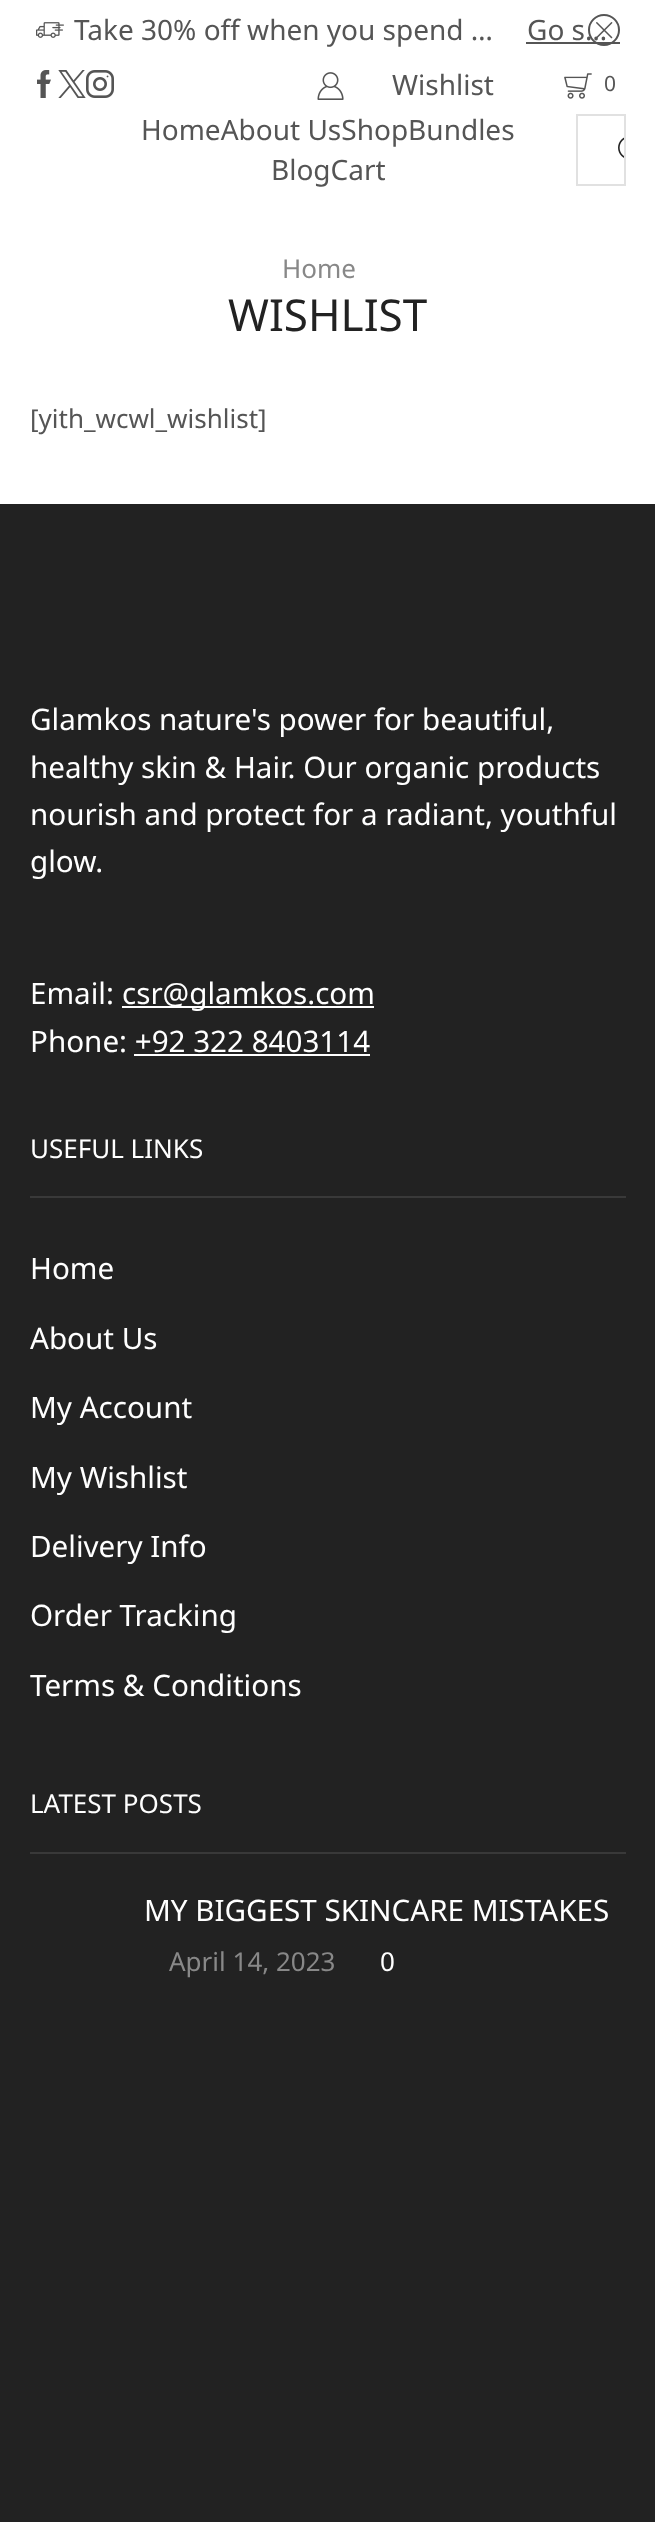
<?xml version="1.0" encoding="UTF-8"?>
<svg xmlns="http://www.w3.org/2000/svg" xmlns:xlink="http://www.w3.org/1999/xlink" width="655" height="2522">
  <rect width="100%" height="100%" fill="#ffffff" />
  <rect x="526" y="42" width="94" height="2" fill="#555555" />
  <circle cx="604" cy="30" r="15" fill="none" stroke="#555555" stroke-width="2" />
  <image x="36" y="22" width="28" height="16" xlink:href="image2.png" />
  <image x="37" y="70" width="14" height="28" xlink:href="image3.png" />
  <image x="58" y="70" width="28" height="28" xlink:href="image4.png" />
  <image x="86" y="70" width="28" height="28" xlink:href="image5.png" />
  <image x="317" y="72" width="27" height="28" xlink:href="image6.png" />
  <image x="564" y="73" width="28" height="26" xlink:href="image7.png" />
  <rect x="577" y="115" width="48" height="70" fill="none" stroke="#e1e1e1" stroke-width="2" />
  <image x="618" y="137" width="6" height="21" xlink:href="image8.png" />
  <rect y="504" width="655" height="2018" fill="#222222" />
  <rect x="122" y="1006" width="252" height="2" fill="#ffffff" />
  <rect x="134" y="1054" width="236" height="2" fill="#ffffff" />
  <rect x="30" y="1196" width="596" height="2" fill="#393939" />
  <rect x="30" y="1852" width="596" height="2" fill="#393939" />
  <text x="74" y="40" style="font-family: Noto Sans; font-size: 28px; fill: #555555">Take 30% off when you spend …</text>
  <text x="527" y="40" style="font-family: Noto Sans; font-size: 28px; fill: #555555">Go s…</text>
  <image x="596" y="22" width="17" height="17" xlink:href="image1.png" />
  <text x="392" y="95" style="font-family: Noto Sans; font-size: 28px; fill: #555555">Wishlist</text>
  <text x="604" y="91" style="font-family: Noto Sans; font-size: 21px; fill: #555555">0</text>
  <text x="141" y="140" style="font-family: Noto Sans; font-size: 28px; fill: #555555">HomeAbout UsShopBundles</text>
  <text x="271" y="180" style="font-family: Noto Sans; font-size: 28px; fill: #555555">BlogCart</text>
  <text x="282" y="278" style="font-family: Noto Sans; font-size: 26px; fill: #888888">Home</text>
  <text x="228" y="331" style="font-family: Noto Sans; font-size: 44px; fill: #222222">WISHLIST</text>
  <text x="30" y="428" style="font-family: Noto Sans; font-size: 26px; fill: #555555">[yith_wcwl_wishlist]</text>
  <text x="30" y="730" style="font-family: Noto Sans; font-size: 29.6px; fill: #ffffff">Glamkos nature's power for beautiful,</text>
  <text x="30" y="778" style="font-family: Noto Sans; font-size: 29.6px; fill: #ffffff">healthy skin &amp; Hair. Our organic products</text>
  <text x="30" y="825" style="font-family: Noto Sans; font-size: 29.6px; fill: #ffffff">nourish and protect for a radiant, youthful</text>
  <text x="30" y="872" style="font-family: Noto Sans; font-size: 29.6px; fill: #ffffff">glow.</text>
  <text x="30" y="1004" style="font-family: Noto Sans; font-size: 29.6px; fill: #ffffff">Email:</text>
  <text x="122" y="1004" style="font-family: Noto Sans; font-size: 29.6px; fill: #ffffff">csr@glamkos.com</text>
  <text x="30" y="1052" style="font-family: Noto Sans; font-size: 29.6px; fill: #ffffff">Phone: +92 322 8403114</text>
  <text x="30" y="1158" style="font-family: Noto Sans; font-size: 26px; fill: #ffffff">USEFUL LINKS</text>
  <text x="30" y="1279" style="font-family: Noto Sans; font-size: 29.6px; fill: #ffffff">Home</text>
  <text x="30" y="1349" style="font-family: Noto Sans; font-size: 29.6px; fill: #ffffff">About Us</text>
  <text x="30" y="1418" style="font-family: Noto Sans; font-size: 29.6px; fill: #ffffff">My Account</text>
  <text x="30" y="1488" style="font-family: Noto Sans; font-size: 29.6px; fill: #ffffff">My Wishlist</text>
  <text x="30" y="1557" style="font-family: Noto Sans; font-size: 29.6px; fill: #ffffff">Delivery Info</text>
  <text x="30" y="1626" style="font-family: Noto Sans; font-size: 29.6px; fill: #ffffff">Order Tracking</text>
  <text x="30" y="1696" style="font-family: Noto Sans; font-size: 29.6px; fill: #ffffff">Terms &amp; Conditions</text>
  <text x="30" y="1813" style="font-family: Noto Sans; font-size: 26px; fill: #ffffff">LATEST POSTS</text>
  <text x="144" y="1921" style="font-family: Noto Sans; font-size: 29.6px; fill: #ffffff">MY BIGGEST SKINCARE MISTAKES</text>
  <text x="169" y="1971" style="font-family: Noto Sans; font-size: 26px; fill: #888888">April 14, 2023</text>
  <text x="380" y="1971" style="font-family: Noto Sans; font-size: 26px; fill: #ffffff">0</text>
</svg>
